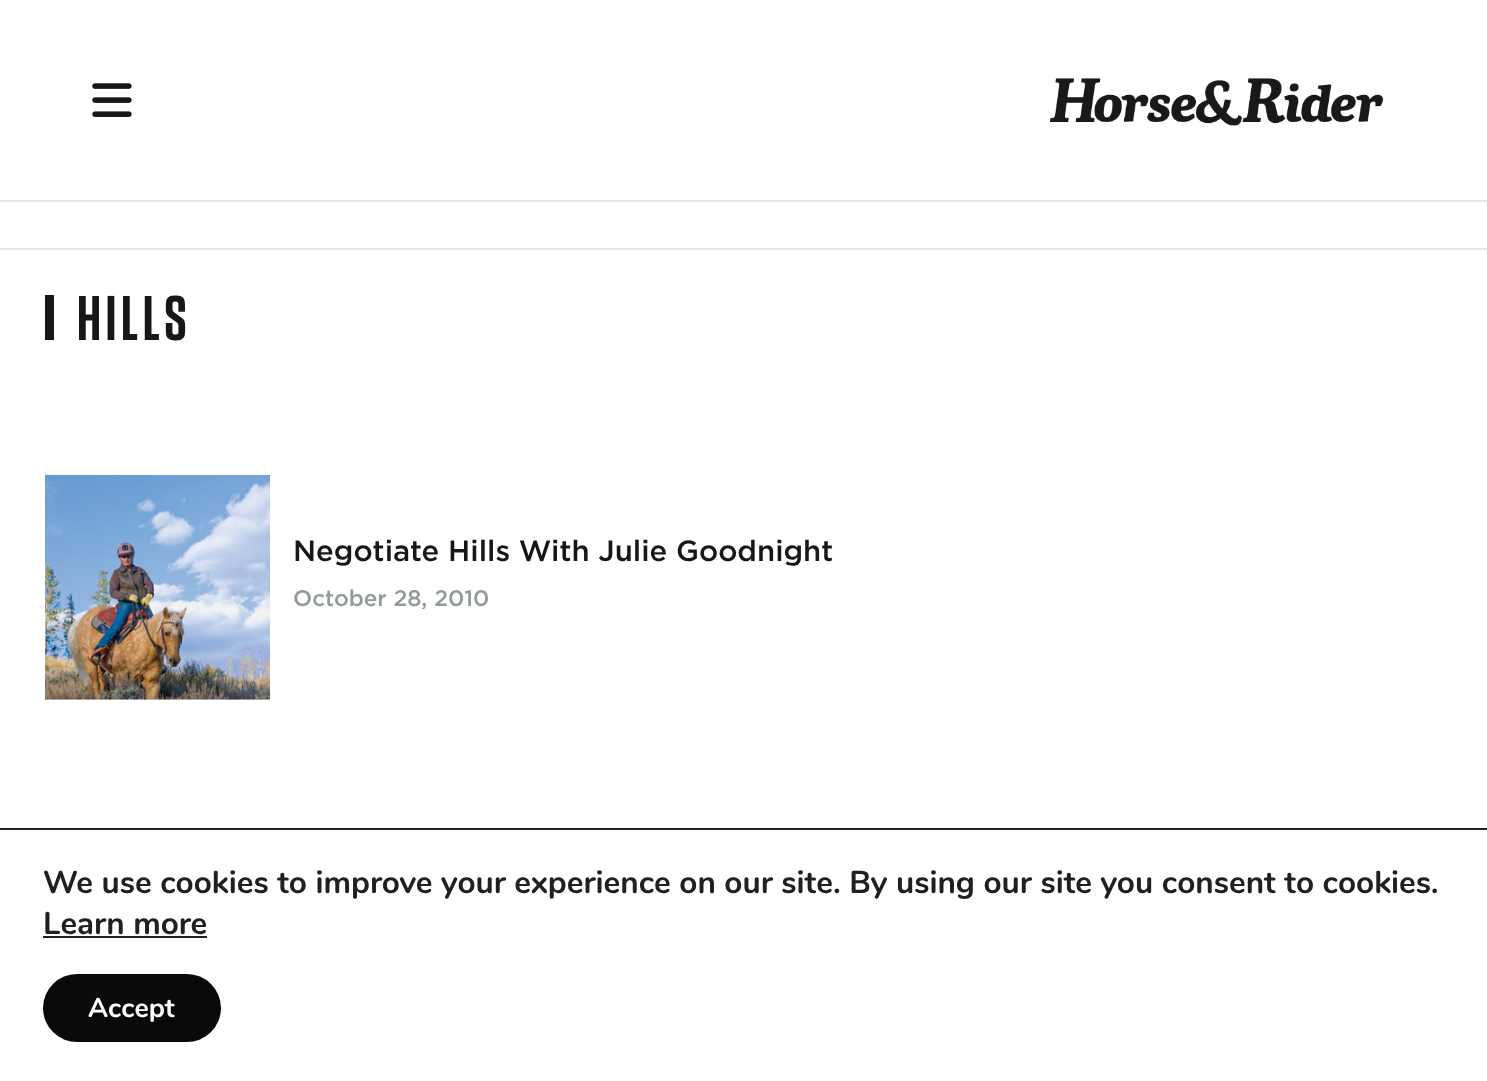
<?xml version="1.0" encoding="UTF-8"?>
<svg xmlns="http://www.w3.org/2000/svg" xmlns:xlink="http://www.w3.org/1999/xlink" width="1487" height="1081">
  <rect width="100%" height="100%" fill="#ffffff" />
  <rect y="200" width="1487" height="2" fill="#e5e5e5" />
  <image x="92" y="83" width="40" height="34" xlink:href="image1.png" />
  <image x="1050" y="78" width="334" height="48" xlink:href="image2.png" />
  <rect y="248" width="1487" height="2" fill="#e5e5e5" />
  <rect x="45" y="295" width="9" height="45" fill="#191616" />
  <image x="45" y="474" width="225" height="226" xlink:href="image3.png" />
  <rect y="828" width="1487" height="2" fill="#202020" />
  <rect x="43" y="936" width="164" height="2" fill="#202020" />
  <rect x="43" y="974" width="178" height="68" rx="34" fill="#0a0a0a" />
  <text x="77" y="340" style="font-family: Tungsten; font-size: 63px; font-weight: 600; letter-spacing: 4.5px; fill: #191616">HILLS</text>
  <text x="293" y="561" style="font-family: Gotham; font-size: 29.25px; font-weight: 500; fill: #191616">Negotiate Hills With Julie Goodnight</text>
  <text x="293" y="606" style="font-family: Gotham; font-size: 22.5px; font-weight: 500; fill: #939b9d">October 28, 2010</text>
  <text x="43" y="893" style="font-family: Nunito; font-size: 31.5px; font-weight: bold; fill: #202020">We use cookies to improve your experience on our site. By using our site you consent to cookies.</text>
  <text x="43" y="934" style="font-family: Nunito; font-size: 31.5px; font-weight: bold; fill: #202020">Learn more</text>
  <text x="88" y="1017" style="font-family: Nunito; font-size: 27px; font-weight: bold; fill: #ffffff">Accept</text>
</svg>
